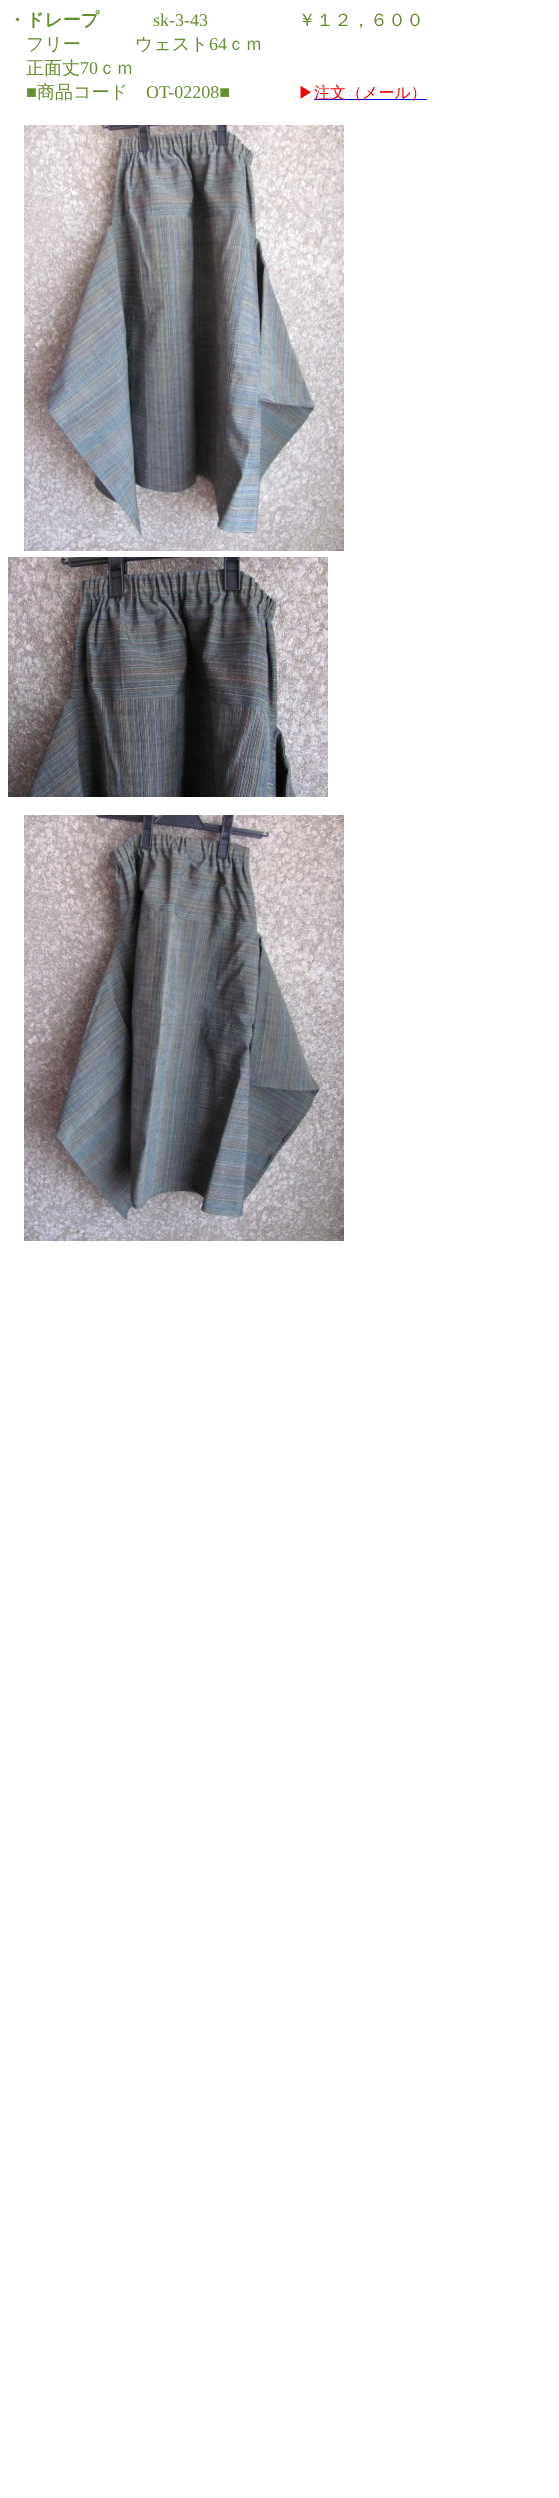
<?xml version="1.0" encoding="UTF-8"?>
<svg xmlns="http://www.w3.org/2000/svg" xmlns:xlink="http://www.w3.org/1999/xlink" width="559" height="2498">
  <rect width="100%" height="100%" fill="#ffffff" />
  <rect x="314" y="99" width="113" height="1" fill="#0000ee" />
  <image x="24" y="125" width="320" height="426" xlink:href="image1.png" />
  <image x="8" y="557" width="320" height="240" xlink:href="image2.png" />
  <image x="24" y="815" width="320" height="426" xlink:href="image3.png" />
  <text x="8" y="26" style="font-family: WenQuanYi Zen Hei; font-size: 18px; font-weight: bold; fill: #668f34">・ドレープ</text>
  <text x="153" y="26" style="font-family: Liberation Serif; font-size: 18px; fill: #668f34">sk-3-43</text>
  <text x="298" y="26" style="font-family: WenQuanYi Zen Hei; font-size: 18px; font-weight: 500; fill: #668f34">￥１２，６００</text>
  <text x="26" y="50" style="font-family: WenQuanYi Zen Hei; font-size: 18px; font-weight: 500; fill: #668f34">フリー　　　ウェスト</text>
  <text x="209" y="50" style="font-family: Liberation Serif; font-size: 18px; fill: #668f34">64</text>
  <text x="227" y="50" style="font-family: WenQuanYi Zen Hei; font-size: 18px; font-weight: 500; fill: #668f34">ｃｍ</text>
  <text x="26" y="74" style="font-family: WenQuanYi Zen Hei; font-size: 18px; font-weight: 500; fill: #668f34">正面丈</text>
  <text x="80" y="74" style="font-family: Liberation Serif; font-size: 18px; fill: #668f34">70</text>
  <text x="98" y="74" style="font-family: WenQuanYi Zen Hei; font-size: 18px; font-weight: 500; fill: #668f34">ｃｍ</text>
  <text x="26" y="98" style="font-family: Liberation Serif; font-size: 18px; fill: #668f34">■</text>
  <text x="37" y="98" style="font-family: WenQuanYi Zen Hei; font-size: 18px; font-weight: 500; fill: #668f34">商品コード</text>
  <text x="146" y="98" style="font-family: Liberation Serif; font-size: 18px; fill: #668f34">OT-02208■</text>
  <text x="298" y="98" style="font-family: WenQuanYi Zen Hei; font-size: 16px; font-weight: 500; fill: #ff0000">▶</text>
  <text x="314" y="98" style="font-family: WenQuanYi Zen Hei; font-size: 16px; font-weight: 500; fill: #ff0000">注文（メール）</text>
</svg>
